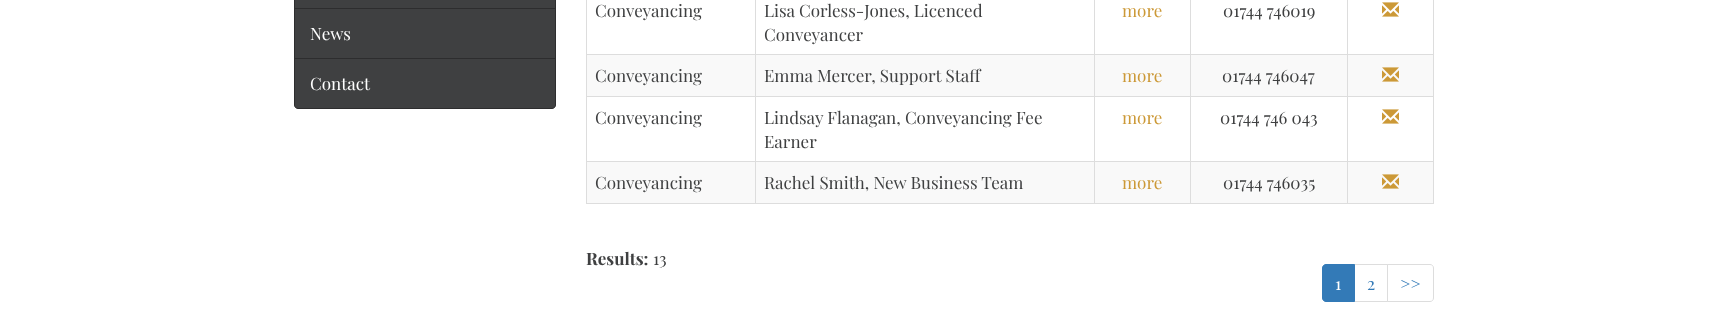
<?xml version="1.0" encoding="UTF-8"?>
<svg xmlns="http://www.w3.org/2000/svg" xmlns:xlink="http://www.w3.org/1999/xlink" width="1727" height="324">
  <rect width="100%" height="100%" fill="#ffffff" />
  <rect x="294.5" y="-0.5" width="261" height="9" fill="#3f4041" stroke="#2d2d2e" />
  <rect x="294.5" y="8.5" width="261" height="50" fill="#3f4041" stroke="#2d2d2e" />
  <path d="M 294.5 58.5 h 261 v 46.5 c 0 2 -1.5 3.5 -3.5 3.5 h -254 c -2 0 -3.5 -1.5 -3.5 -3.5 z" fill="#3f4041" stroke="#2d2d2e" />
  <rect x="1433" width="1" height="204" fill="#dddddd" />
  <rect x="586" y="203" width="848" height="1" fill="#dddddd" />
  <rect x="586" width="1" height="204" fill="#dddddd" />
  <rect x="1347" y="54" width="87" height="1" fill="#dddddd" />
  <rect x="587" y="55" width="846" height="41" fill="#f9f9f9" />
  <rect x="1347" y="96" width="87" height="1" fill="#dddddd" />
  <rect x="1347" y="161" width="87" height="1" fill="#dddddd" />
  <rect x="587" y="162" width="846" height="41" fill="#f9f9f9" />
  <rect x="1347" y="161" width="1" height="43" fill="#dddddd" />
  <rect x="1190" y="161" width="158" height="1" fill="#dddddd" />
  <rect x="1347" y="96" width="1" height="66" fill="#dddddd" />
  <rect x="1190" y="96" width="158" height="1" fill="#dddddd" />
  <rect x="1347" y="54" width="1" height="43" fill="#dddddd" />
  <rect x="1190" y="54" width="158" height="1" fill="#dddddd" />
  <rect x="1190" y="161" width="1" height="43" fill="#dddddd" />
  <rect x="1094" y="161" width="97" height="1" fill="#dddddd" />
  <rect x="1190" y="96" width="1" height="66" fill="#dddddd" />
  <rect x="1094" y="96" width="97" height="1" fill="#dddddd" />
  <rect x="1190" y="54" width="1" height="43" fill="#dddddd" />
  <rect x="1094" y="54" width="97" height="1" fill="#dddddd" />
  <rect x="1094" y="161" width="1" height="43" fill="#dddddd" />
  <rect x="755" y="161" width="340" height="1" fill="#dddddd" />
  <rect x="1094" y="96" width="1" height="66" fill="#dddddd" />
  <rect x="755" y="96" width="340" height="1" fill="#dddddd" />
  <rect x="1094" y="54" width="1" height="43" fill="#dddddd" />
  <rect x="755" y="54" width="340" height="1" fill="#dddddd" />
  <rect x="755" y="161" width="1" height="43" fill="#dddddd" />
  <rect x="586" y="161" width="170" height="1" fill="#dddddd" />
  <rect x="755" y="96" width="1" height="66" fill="#dddddd" />
  <rect x="586" y="96" width="170" height="1" fill="#dddddd" />
  <rect x="755" y="54" width="1" height="43" fill="#dddddd" />
  <rect x="586" y="54" width="170" height="1" fill="#dddddd" />
  <rect x="755" width="1" height="55" fill="#dddddd" />
  <rect x="1094" width="1" height="55" fill="#dddddd" />
  <rect x="1190" width="1" height="55" fill="#dddddd" />
  <rect x="1347" width="1" height="55" fill="#dddddd" />
  <image x="1382" y="2" width="17" height="15" xlink:href="image1.png" />
  <image x="1382" y="67" width="17" height="15" xlink:href="image2.png" />
  <image x="1382" y="109" width="17" height="15" xlink:href="image1.png" />
  <image x="1382" y="174" width="17" height="15" xlink:href="image2.png" />
  <rect x="1354.5" y="264.5" width="33" height="37" fill="none" stroke="#dddddd" />
  <path d="M 1326 264.5 h 28.5 v 37 h -28.5 c -2 0 -3.5 -1.5 -3.5 -3.5 v -30 c 0 -2 1.5 -3.5 3.5 -3.5 z" fill="#337ab7" stroke="#337ab7" />
  <path d="M 1387.5 264.5 h 42.5 c 2 0 3.5 1.5 3.5 3.5 v 30 c 0 2 -1.5 3.5 -3.5 3.5 h -42.5 z" fill="#ffffff" stroke="#dddddd" />
  <text x="310" y="40" style="font-family: Playfair Display; font-size: 17px; fill: #ffffff">News</text>
  <text x="310" y="90" style="font-family: Playfair Display; font-size: 17px; fill: #ffffff">Contact</text>
  <text x="595" y="17" style="font-family: Playfair Display; font-size: 17px; fill: #3f4041">Conveyancing</text>
  <text x="764" y="17" style="font-family: Playfair Display; font-size: 17px; fill: #3f4041">Lisa Corless-Jones, Licenced</text>
  <text x="764" y="41" style="font-family: Playfair Display; font-size: 17px; fill: #3f4041">Conveyancer</text>
  <text x="1122" y="17" style="font-family: Playfair Display; font-size: 17px; fill: #cc9937">more</text>
  <text x="1223" y="17" style="font-family: Playfair Display; font-size: 17px; fill: #3f4041">01744 746019</text>
  <text x="595" y="82" style="font-family: Playfair Display; font-size: 17px; fill: #3f4041">Conveyancing</text>
  <text x="764" y="82" style="font-family: Playfair Display; font-size: 17px; fill: #3f4041">Emma Mercer, Support Staff</text>
  <text x="1122" y="82" style="font-family: Playfair Display; font-size: 17px; fill: #cc9937">more</text>
  <text x="1222" y="82" style="font-family: Playfair Display; font-size: 17px; fill: #3f4041">01744 746047</text>
  <text x="595" y="124" style="font-family: Playfair Display; font-size: 17px; fill: #3f4041">Conveyancing</text>
  <text x="764" y="124" style="font-family: Playfair Display; font-size: 17px; fill: #3f4041">Lindsay Flanagan, Conveyancing Fee</text>
  <text x="764" y="148" style="font-family: Playfair Display; font-size: 17px; fill: #3f4041">Earner</text>
  <text x="1122" y="124" style="font-family: Playfair Display; font-size: 17px; fill: #cc9937">more</text>
  <text x="1220" y="124" style="font-family: Playfair Display; font-size: 17px; fill: #3f4041">01744 746 043</text>
  <text x="595" y="189" style="font-family: Playfair Display; font-size: 17px; fill: #3f4041">Conveyancing</text>
  <text x="764" y="189" style="font-family: Playfair Display; font-size: 17px; fill: #3f4041">Rachel Smith, New Business Team</text>
  <text x="1122" y="189" style="font-family: Playfair Display; font-size: 17px; fill: #cc9937">more</text>
  <text x="1223" y="189" style="font-family: Playfair Display; font-size: 17px; fill: #3f4041">01744 746035</text>
  <text x="586" y="265" style="font-family: Playfair Display; font-size: 17px; font-weight: bold; fill: #3f4041">Results:</text>
  <text x="653" y="265" style="font-family: Playfair Display; font-size: 17px; fill: #3f4041">13</text>
  <text x="1335" y="290" style="font-family: Playfair Display; font-size: 17px; fill: #ffffff">1</text>
  <text x="1367" y="290" style="font-family: Playfair Display; font-size: 17px; fill: #337ab7">2</text>
  <text x="1400" y="290" style="font-family: Playfair Display; font-size: 17px; fill: #337ab7">&gt;&gt;</text>
</svg>
